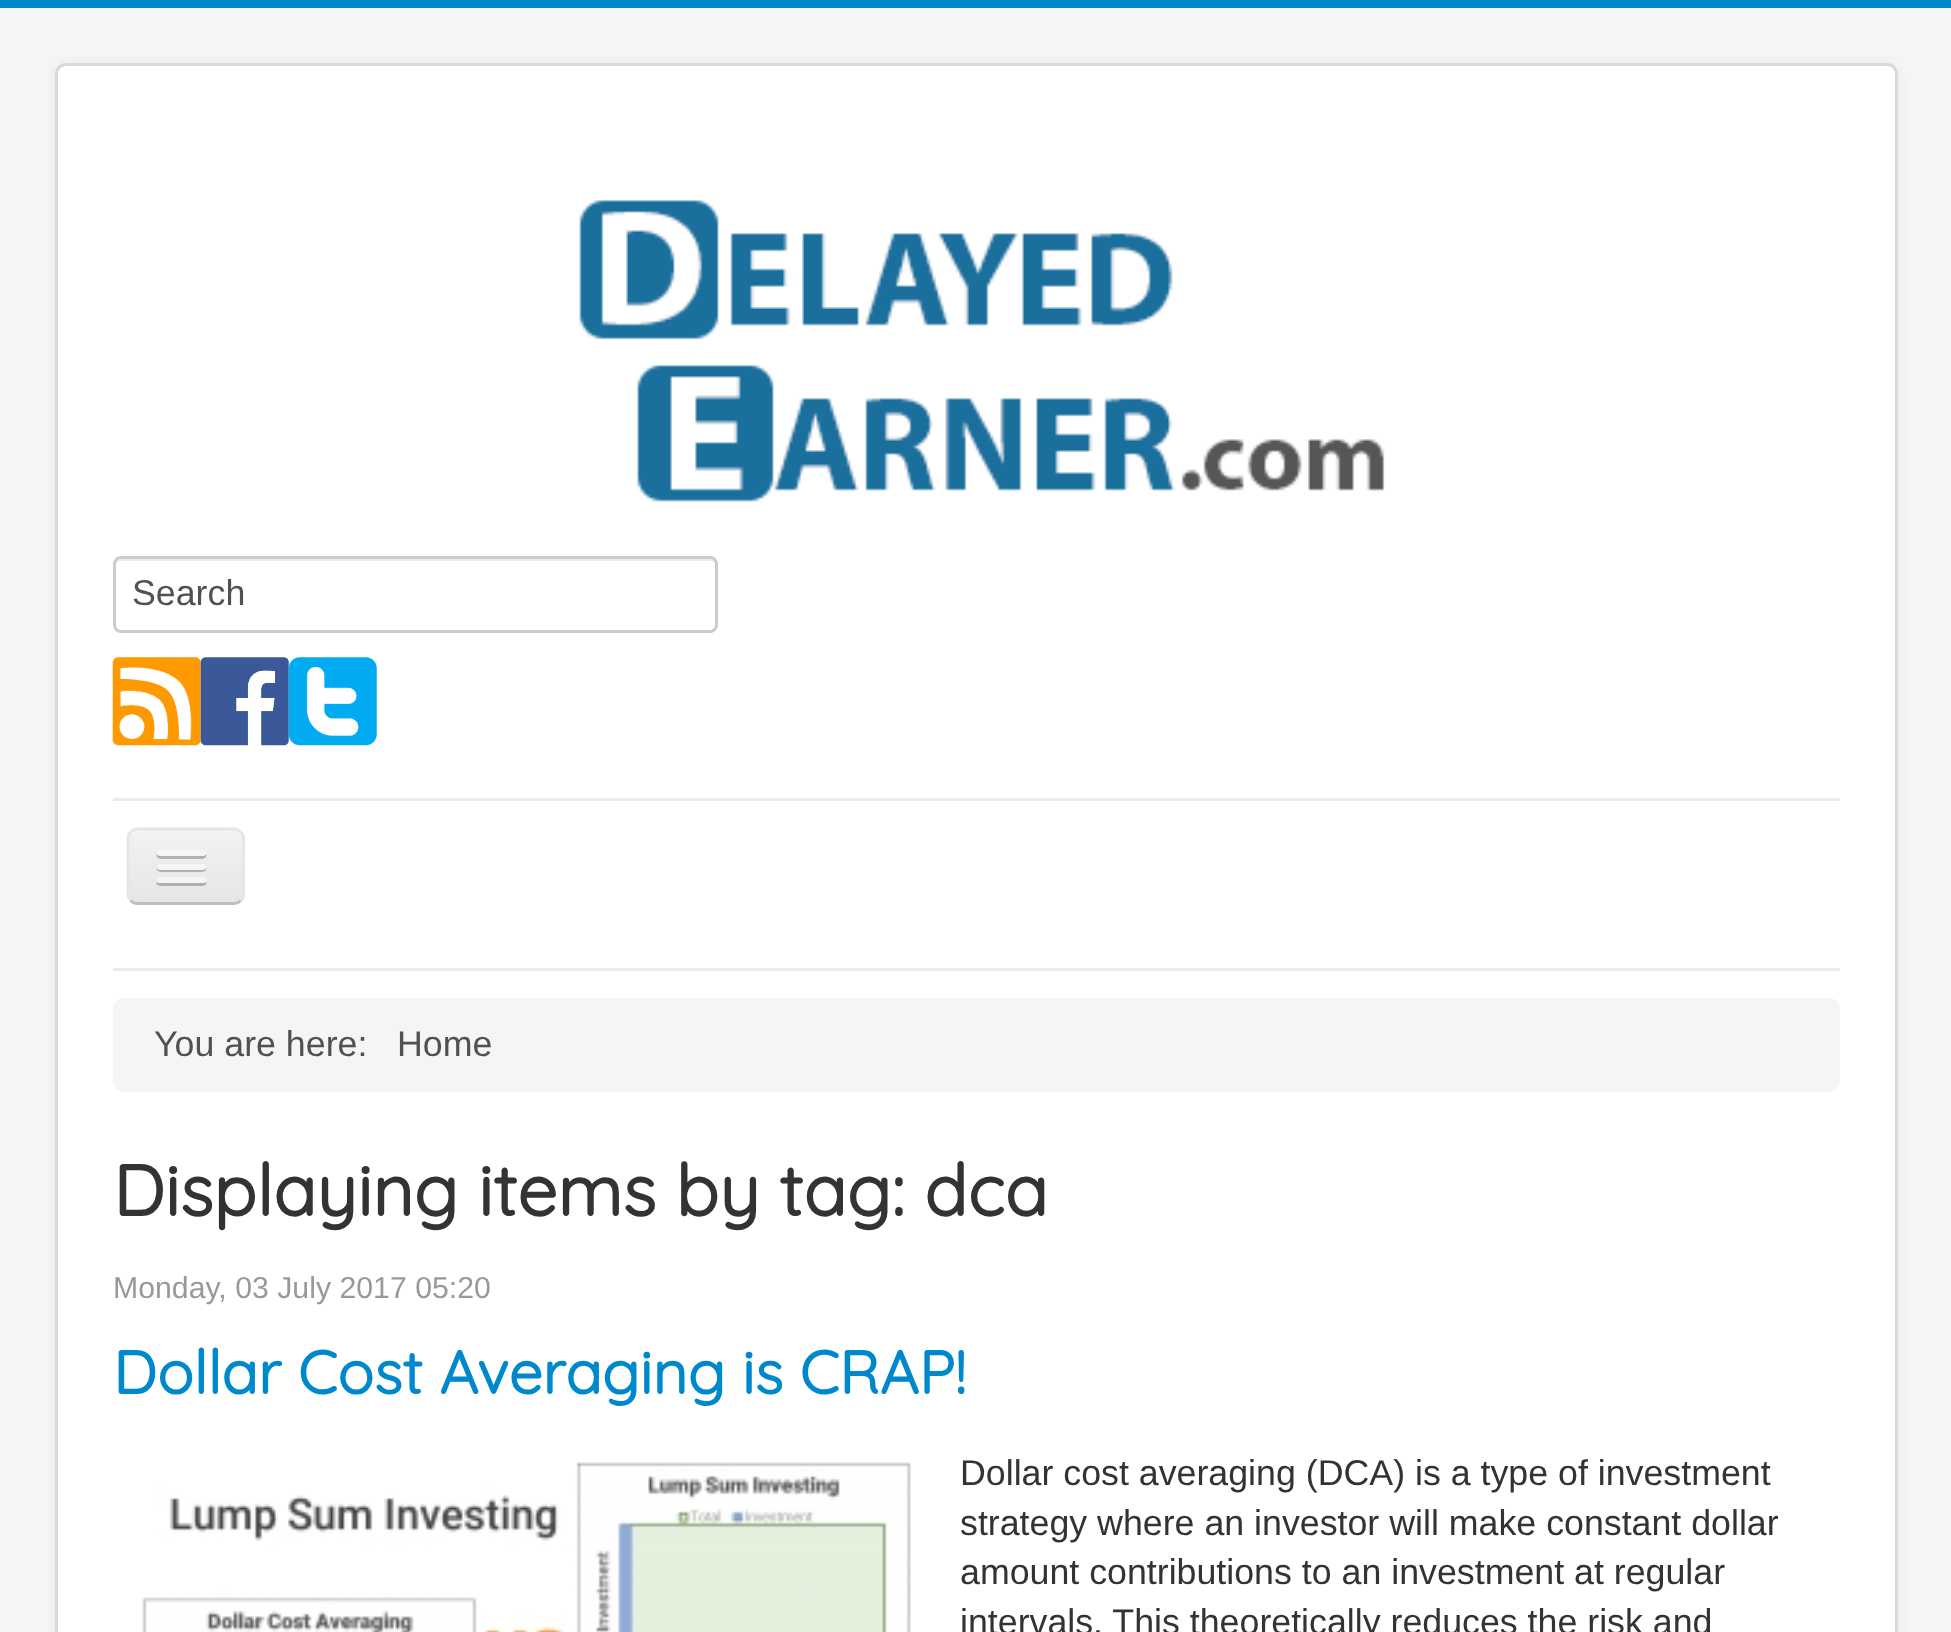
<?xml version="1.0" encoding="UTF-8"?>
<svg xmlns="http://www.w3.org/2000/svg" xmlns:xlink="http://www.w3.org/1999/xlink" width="1951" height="1632">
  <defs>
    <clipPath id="clip1"><rect x="127" y="828" width="118" height="77" rx="11" /></clipPath>
    <linearGradient id="g1" gradientUnits="userSpaceOnUse" x1="186" y1="831" x2="186" y2="902"><stop offset="0" stop-color="#f2f2f2" /><stop offset="1" stop-color="#e6e6e6" /></linearGradient>
  </defs>
  <rect width="100%" height="100%" fill="#f4f6f7" />
  <rect width="1951" height="8" fill="#0088cc" />
  <rect x="55" y="63" width="1843" height="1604" rx="11" fill="#000000" fill-opacity="0.05" filter="blur(8px)" />
  <rect x="55" y="63" width="1843" height="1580" rx="11" fill="#ffffff" />
  <rect x="56.5" y="64.5" width="1840" height="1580" rx="9.5" fill="none" stroke="#000000" stroke-opacity="0.15" stroke-width="3" />
  <image x="579" y="200" width="806" height="302" xlink:href="image1.png" />
  <path d="M 121 561 h 589 c 3 0 5 2 5 5 v -2 c 0 -3 -3 -6 -6 -6 h -587 c -3 0 -6 3 -6 6 v 2 c 0 -3 2 -5 5 -5 z" fill="#ececec" />
  <rect x="114.5" y="557.5" width="602" height="74" rx="6.5" fill="none" stroke="#cccccc" stroke-width="3" />
  <image x="112" y="657" width="89" height="89" xlink:href="image2.png" />
  <image x="200" y="657" width="89" height="89" xlink:href="image3.png" />
  <image x="288" y="657" width="89" height="89" xlink:href="image4.png" />
  <rect x="113" y="798" width="1727" height="3" fill="#ececec" />
  <rect x="113" y="968" width="1727" height="3" fill="#ececec" />
  <rect x="127" y="828" width="118" height="77" rx="11" fill="#ededed" />
  <g clip-path="url(#clip1)">
    <rect x="127" y="831" width="118" height="71" fill="url(#g1)" />
  </g>
  <path d="M 138 833 h 96 c 4 0 8 4 8 9 c 0 -15 -12 -11 -24 -11 h -65 c -12 0 -24 -4 -24 11 c 0 -5 4 -9 9 -9 z" fill="#f3f3f3" />
  <path d="M 240.5 900.5 c -1.5 2 -4 3 -6.5 3 h -96.5 c -2.5 0 -5 -1 -7 -3" fill="none" stroke="#bfbfbf" stroke-width="2.8" />
  <path d="M 130.5 900.5 c -1.5 -1.5 -2.5 -4 -2.5 -6.5 v -55 c 0 -3 1 -5.5 2.5 -7 c 2 -2 4.5 -3 7 -3 h 96.5 c 2.5 0 5 1 6.5 3 c 2 1.5 3 4 3 7 v 55 c 0 2.5 -1 5 -3 6.5" fill="none" stroke="#e6e6e6" stroke-width="2.8" />
  <path d="M 157 854 c -3 6 9 5 10 5 h 29 c 1 0 13 1 10 -5 l -2 1 h -45 z" fill="#b2b2b2" />
  <rect x="157" y="850" width="49" height="6" rx="3" fill="#f5f5f5" />
  <path d="M 157 868 c -2 5 9 4 10 4 h 29 c 1 0 12 1 10 -4 l -2 1 h -45 z" fill="#b0b0b0" />
  <rect x="157" y="864" width="49" height="6" rx="3" fill="#f5f5f5" />
  <path d="M 157 882 c -3 5 9 4 10 4 h 29 c 1 0 13 1 10 -4 l -2 1 h -45 z" fill="#afafaf" />
  <rect x="157" y="877" width="49" height="6" rx="3" fill="#f5f5f5" />
  <rect x="113" y="998" width="1727" height="94" rx="11" fill="#f5f5f5" />
  <image x="142" y="1462" width="769" height="170" xlink:href="image5.png" />
  <text x="132" y="605" style="font-family: Liberation Sans; font-size: 35.75px; fill: #515151">Search</text>
  <text x="154" y="1056" style="font-family: Liberation Sans; font-size: 35.75px; fill: #515151">You are here:</text>
  <text x="397" y="1056" style="font-family: Liberation Sans; font-size: 35.75px; fill: #515151">Home</text>
  <text x="113" y="1216" style="font-family: Quicksand; font-size: 71.5px; font-weight: bold; fill: #333333">Displaying items by tag: dca</text>
  <text x="113" y="1298" style="font-family: Liberation Sans; font-size: 30.25px; fill: #999999">Monday, 03 July 2017 05:20</text>
  <text x="113" y="1394" style="font-family: Quicksand; font-size: 60.5px; font-weight: bold; fill: #0088cc">Dollar Cost Averaging is CRAP!</text>
  <text x="960" y="1485" style="font-family: Liberation Sans; font-size: 35.75px; fill: #333333">Dollar cost averaging (DCA) is a type of investment</text>
  <text x="960" y="1535" style="font-family: Liberation Sans; font-size: 35.75px; fill: #333333">strategy where an investor will make constant dollar</text>
  <text x="960" y="1584" style="font-family: Liberation Sans; font-size: 35.75px; fill: #333333">amount contributions to an investment at regular</text>
  <text x="960" y="1634" style="font-family: Liberation Sans; font-size: 35.75px; fill: #333333">intervals. This theoretically reduces the risk and</text>
</svg>
